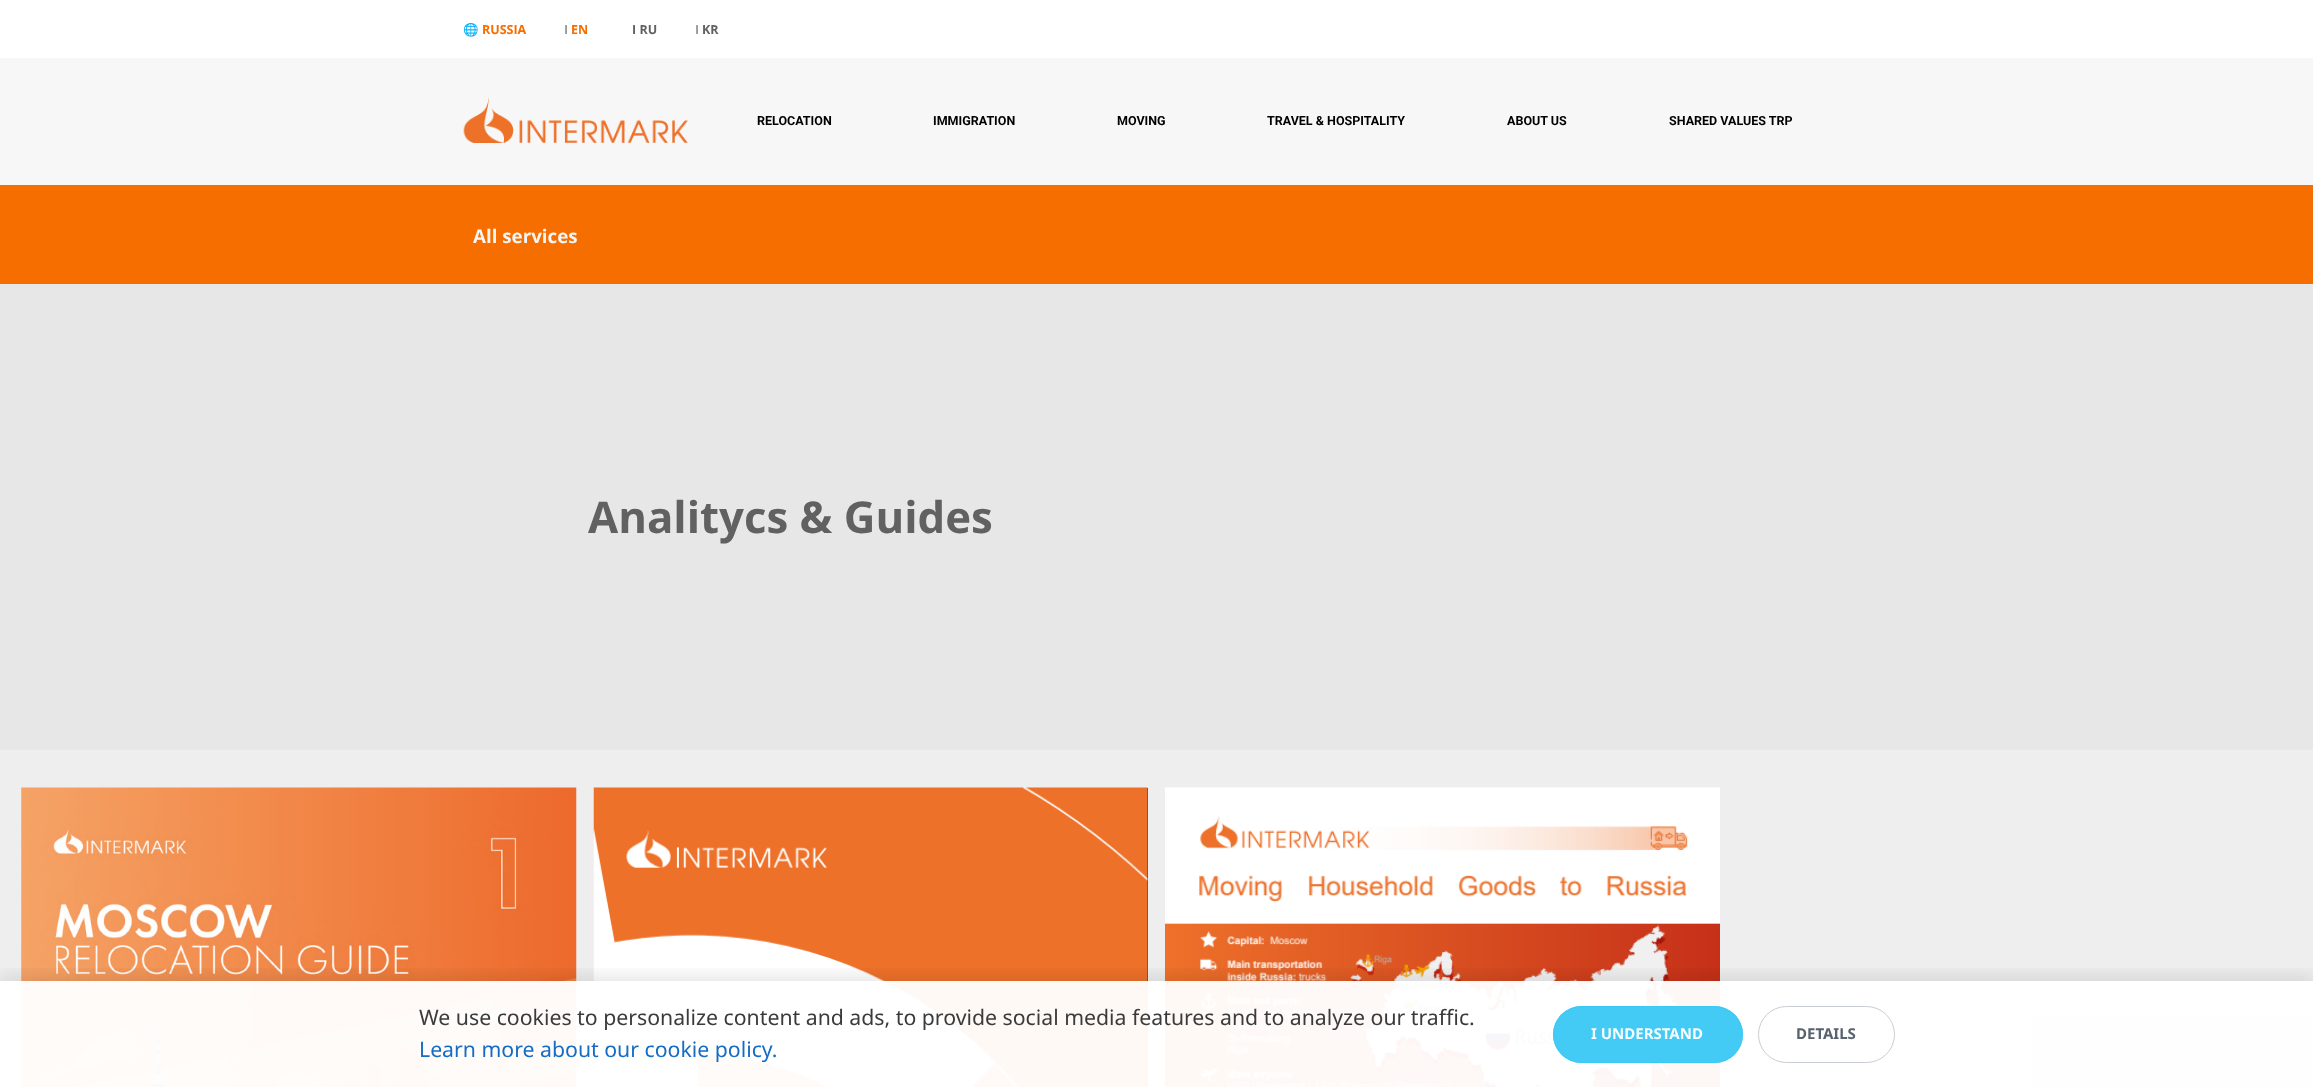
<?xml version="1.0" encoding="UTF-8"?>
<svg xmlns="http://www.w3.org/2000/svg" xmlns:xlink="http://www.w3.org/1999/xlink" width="2313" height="1087">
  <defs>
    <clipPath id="clip1"><rect x="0" y="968" width="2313" height="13" /></clipPath>
  </defs>
  <rect width="100%" height="100%" fill="#ffffff" />
  <rect y="58" width="2313" height="127" fill="#f7f7f7" />
  <image x="463" y="97" width="225" height="46" xlink:href="image1.png" />
  <rect y="185" width="2313" height="99" fill="#f76e00" />
  <rect y="284" width="2313" height="466" fill="#e7e7e7" />
  <rect y="750" width="2313" height="337" fill="#eeeeee" />
  <image x="21" y="787" width="556" height="300" xlink:href="image2.png" />
  <rect x="1147" y="788" width="1" height="299" fill="#31353e" />
  <image x="593" y="787" width="555" height="300" xlink:href="image3.png" />
  <image x="1165" y="787" width="555" height="300" xlink:href="image4.png" />
  <g clip-path="url(#clip1)">
    <rect y="976" width="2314" height="107" fill="#000000" fill-opacity="0.1" filter="blur(9px)" />
  </g>
  <rect y="981" width="2313" height="106" fill="#ffffff" fill-opacity="0.96" />
  <rect x="1553" y="1006" width="190" height="57" rx="28.5" fill="#3bc8f5" fill-opacity="0.96" />
  <rect x="1553.5" y="1006.5" width="189" height="56" rx="28" fill="none" stroke="#3bc8f5" stroke-opacity="0.96" />
  <rect x="1758.5" y="1006.5" width="136" height="56" rx="28" fill="none" stroke="#c8ced4" />
  <text x="463" y="34" style="font-family: Noto Color Emoji; font-size: 12.5px; font-weight: bold; fill: #f76e00">🌐</text>
  <text x="482" y="34" style="font-family: Open Sans; font-size: 12.5px; font-weight: bold; fill: #f76e00">RUSSIA</text>
  <text x="564" y="34" style="font-family: Open Sans; font-size: 12.5px; font-weight: bold; fill: #999999">I</text>
  <text x="571" y="34" style="font-family: Open Sans; font-size: 12.5px; font-weight: bold; fill: #f76e00">EN</text>
  <text x="632" y="34" style="font-family: Open Sans; font-size: 12.5px; font-weight: bold; fill: #616161">I RU</text>
  <text x="695" y="34" style="font-family: Open Sans; font-size: 12.5px; font-weight: bold; fill: #999999">I</text>
  <text x="702" y="34" style="font-family: Open Sans; font-size: 12.5px; font-weight: bold; fill: #616161">KR</text>
  <text x="757" y="125" style="font-family: Roboto; font-size: 12.5px; font-weight: bold; fill: #000000">RELOCATION</text>
  <text x="933" y="125" style="font-family: Roboto; font-size: 12.5px; font-weight: bold; fill: #000000">IMMIGRATION</text>
  <text x="1117" y="125" style="font-family: Roboto; font-size: 12.5px; font-weight: bold; fill: #000000">MOVING</text>
  <text x="1267" y="125" style="font-family: Roboto; font-size: 12.5px; font-weight: bold; fill: #000000">TRAVEL &amp; HOSPITALITY</text>
  <text x="1507" y="125" style="font-family: Roboto; font-size: 12.5px; font-weight: bold; fill: #000000">ABOUT US</text>
  <text x="1669" y="125" style="font-family: Roboto; font-size: 12.5px; font-weight: bold; fill: #000000">SHARED VALUES TRP</text>
  <text x="473" y="243" style="font-family: Open Sans; font-size: 18.75px; font-weight: bold; fill: #f5f5f5">All services</text>
  <text x="588" y="533" style="font-family: Open Sans; font-size: 43.75px; font-weight: bold; fill: #616161">Analitycs &amp; Guides</text>
  <text x="419" y="1025" style="font-family: Noto Sans; font-size: 21.25px; fill: #3b3b3b">We use cookies to personalize content and ads, to provide social media features and to analyze our traffic.</text>
  <text x="419" y="1057" style="font-family: Noto Sans; font-size: 21.25px; fill: #156cc5">Learn more about our cookie policy.</text>
  <text x="1591" y="1039" style="font-family: Noto Sans; font-size: 15px; font-weight: bold; fill: #f7fdff">I UNDERSTAND</text>
  <text x="1796" y="1039" style="font-family: Noto Sans; font-size: 15px; font-weight: bold; fill: #58626e">DETAILS</text>
</svg>
